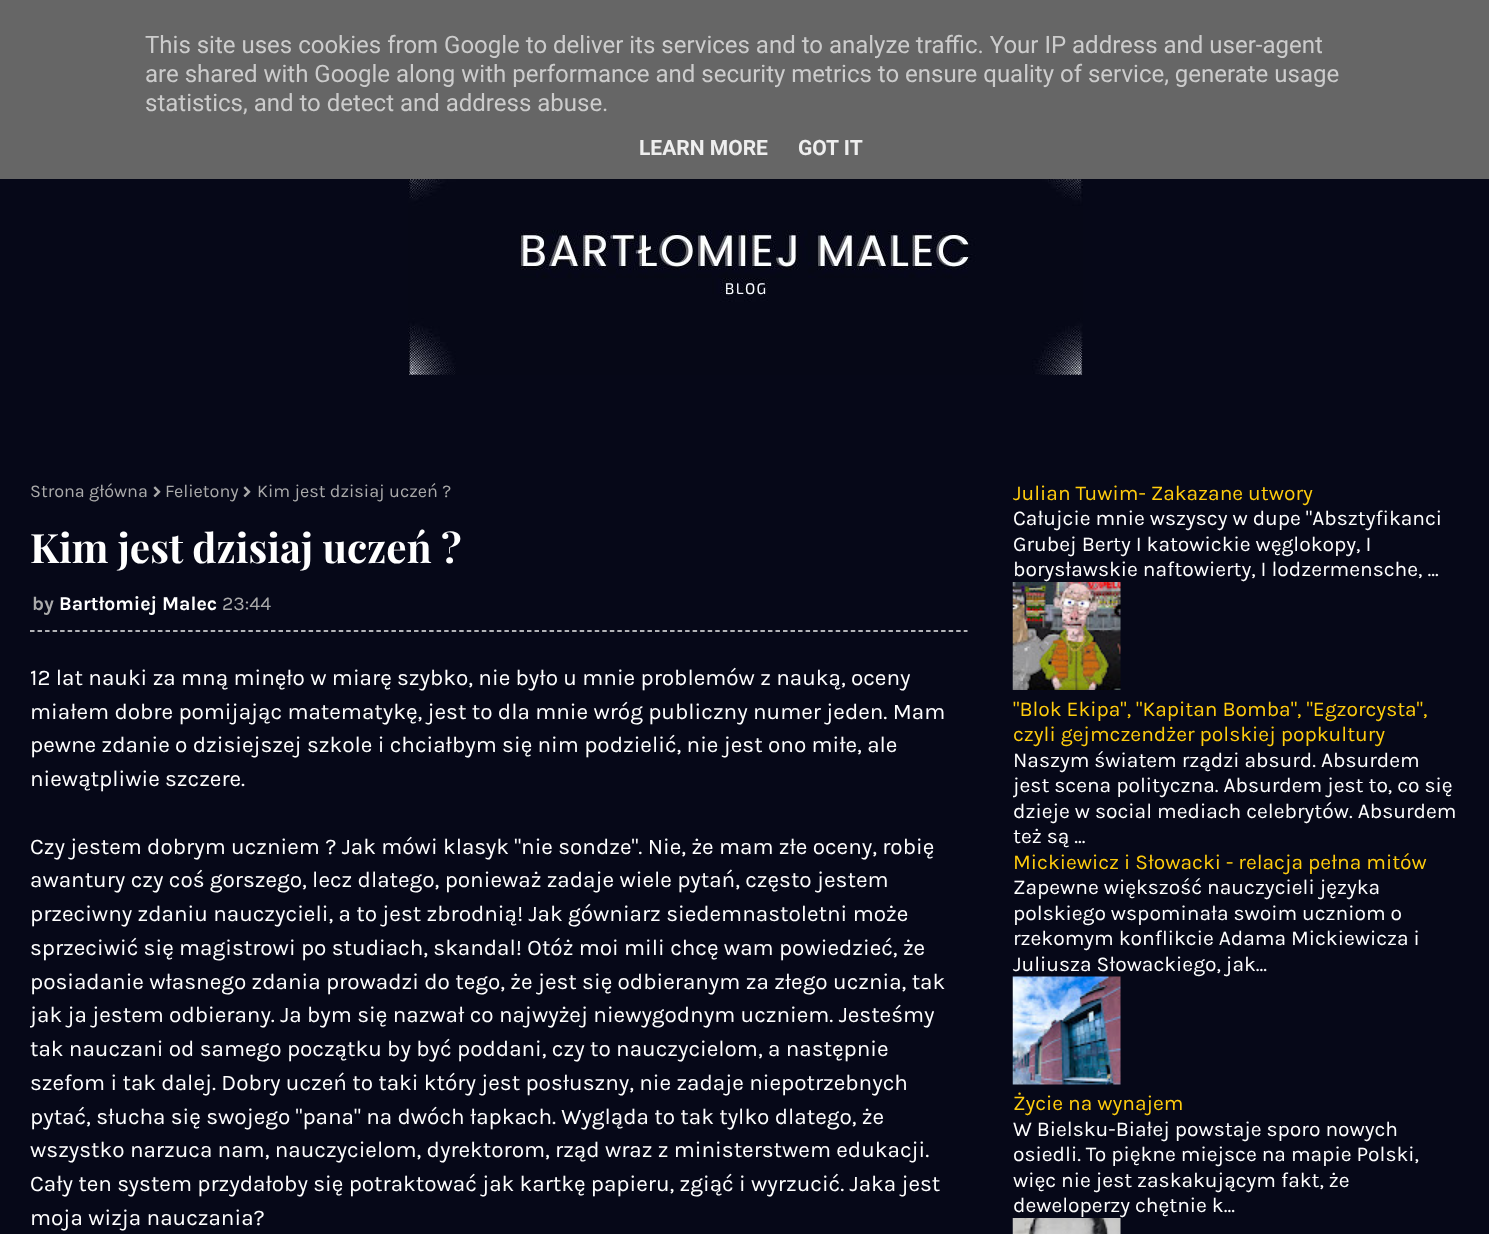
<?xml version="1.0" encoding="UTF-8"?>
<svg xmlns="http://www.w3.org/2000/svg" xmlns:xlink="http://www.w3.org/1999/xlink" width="1489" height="1234">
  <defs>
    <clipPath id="clip1"><rect x="30" y="632" width="938" height="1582" /></clipPath>
    <clipPath id="clip2"><rect x="1013" y="480" width="447" height="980" /></clipPath>
  </defs>
  <rect width="100%" height="100%" fill="#060818" />
  <rect width="1489" height="179" fill="#666666" />
  <image x="408" y="179" width="675" height="196" xlink:href="image1.png" />
  <image x="153" y="486" width="8" height="12" xlink:href="image2.png" />
  <image x="243" y="486" width="8" height="12" xlink:href="image2.png" />
  <path d="M 30 631 h 937.5" fill="none" stroke="#ebebeb" stroke-width="1.5" stroke-dasharray="4.5 3.03" />
  <image x="1012" y="582" width="109" height="108" xlink:href="image3.png" />
  <image x="1012" y="1218" width="109" height="16" xlink:href="image5.png" />
  <text x="145" y="53" style="font-family: Roboto; font-size: 24px; fill: #cccccc">This site uses cookies from Google to deliver its services and to analyze traffic. Your IP address and user-agent</text>
  <text x="145" y="82" style="font-family: Roboto; font-size: 24px; fill: #cccccc">are shared with Google along with performance and security metrics to ensure quality of service, generate usage</text>
  <text x="145" y="111" style="font-family: Roboto; font-size: 24px; fill: #cccccc">statistics, and to detect and address abuse.</text>
  <text x="639" y="155" style="font-family: Roboto; font-size: 21px; font-weight: bold; fill: #eeeeee">LEARN MORE</text>
  <text x="798" y="155" style="font-family: Roboto; font-size: 21px; font-weight: bold; fill: #eeeeee">GOT IT</text>
  <text x="30" y="497" style="font-family: Karla; font-size: 18px; fill: #aaaaaa">Strona główna</text>
  <text x="165" y="497" style="font-family: Karla; font-size: 18px; fill: #aaaaaa">Felietony</text>
  <text x="257" y="497" style="font-family: Karla; font-size: 18px; fill: #aaaaaa">Kim jest dzisiaj uczeń ?</text>
  <text x="30" y="563" style="font-family: Playfair Display; font-size: 40.5px; font-weight: bold; fill: #ffffff">Kim jest dzisiaj uczeń ?</text>
  <text x="32" y="610" style="font-family: Karla; font-size: 19.5px; font-weight: bold; fill: #aaaaaa">by</text>
  <text x="59" y="610" style="font-family: Karla; font-size: 19.5px; font-weight: bold; fill: #ffffff">Bartłomiej Malec</text>
  <text x="222" y="610" style="font-family: Karla; font-size: 19.5px; fill: #aaaaaa">23:44</text>
  <text x="30" y="685" style="font-family: Karla; font-size: 22.5px; fill: #ffffff">12 lat nauki za mną minęło w miarę szybko, nie było u mnie problemów z nauką, oceny</text>
  <text x="30" y="719" style="font-family: Karla; font-size: 22.5px; fill: #ffffff">miałem dobre pomijając matematykę, jest to dla mnie wróg publiczny numer jeden. Mam</text>
  <text x="30" y="752" style="font-family: Karla; font-size: 22.5px; fill: #ffffff">pewne zdanie o dzisiejszej szkole i chciałbym się nim podzielić, nie jest ono miłe, ale</text>
  <text x="30" y="786" style="font-family: Karla; font-size: 22.5px; fill: #ffffff">niewątpliwie szczere.</text>
  <text x="30" y="854" style="font-family: Karla; font-size: 22.5px; fill: #ffffff">Czy jestem dobrym uczniem ? Jak mówi klasyk "nie sondze". Nie, że mam złe oceny, robię</text>
  <text x="30" y="887" style="font-family: Karla; font-size: 22.5px; fill: #ffffff">awantury czy coś gorszego, lecz dlatego, ponieważ zadaje wiele pytań, często jestem</text>
  <text x="30" y="921" style="font-family: Karla; font-size: 22.5px; fill: #ffffff">przeciwny zdaniu nauczycieli, a to jest zbrodnią! Jak gówniarz siedemnastoletni może</text>
  <text x="30" y="955" style="font-family: Karla; font-size: 22.5px; fill: #ffffff">sprzeciwić się magistrowi po studiach, skandal! Otóż moi mili chcę wam powiedzieć, że</text>
  <text x="30" y="989" style="font-family: Karla; font-size: 22.5px; fill: #ffffff">posiadanie własnego zdania prowadzi do tego, że jest się odbieranym za złego ucznia, tak</text>
  <g clip-path="url(#clip1)">
    <text x="30" y="1022" style="font-family: Karla; font-size: 22.5px; fill: #ffffff">jak ja jestem odbierany. Ja bym się nazwał co najwyżej niewygodnym uczniem. Jesteśmy</text>
  </g>
  <text x="30" y="1056" style="font-family: Karla; font-size: 22.5px; fill: #ffffff">tak nauczani od samego początku by być poddani, czy to nauczycielom, a następnie</text>
  <text x="30" y="1090" style="font-family: Karla; font-size: 22.5px; fill: #ffffff">szefom i tak dalej. Dobry uczeń to taki który jest posłuszny, nie zadaje niepotrzebnych</text>
  <text x="30" y="1124" style="font-family: Karla; font-size: 22.5px; fill: #ffffff">pytać, słucha się swojego "pana" na dwóch łapkach. Wygląda to tak tylko dlatego, że</text>
  <text x="30" y="1157" style="font-family: Karla; font-size: 22.5px; fill: #ffffff">wszystko narzuca nam, nauczycielom, dyrektorom, rząd wraz z ministerstwem edukacji.</text>
  <text x="30" y="1191" style="font-family: Karla; font-size: 22.5px; fill: #ffffff">Cały ten system przydałoby się potraktować jak kartkę papieru, zgiąć i wyrzucić. Jaka jest</text>
  <text x="30" y="1225" style="font-family: Karla; font-size: 22.5px; fill: #ffffff">moja wizja nauczania?</text>
  <text x="1013" y="500" style="font-family: Karla; font-size: 21px; fill: #ffcc0d">Julian Tuwim- Zakazane utwory</text>
  <text x="1013" y="525" style="font-family: Karla; font-size: 21px; fill: #ffffff">Całujcie mnie wszyscy w dupe "Absztyfikanci</text>
  <text x="1013" y="551" style="font-family: Karla; font-size: 21px; fill: #ffffff">Grubej Berty I katowickie węglokopy, I</text>
  <text x="1013" y="576" style="font-family: Karla; font-size: 21px; fill: #ffffff">borysławskie naftowierty, I lodzermensche, ...</text>
  <text x="1013" y="716" style="font-family: Karla; font-size: 21px; fill: #ffcc0d">"Blok Ekipa", "Kapitan Bomba", "Egzorcysta",</text>
  <text x="1013" y="741" style="font-family: Karla; font-size: 21px; fill: #ffcc0d">czyli gejmczendżer polskiej popkultury</text>
  <text x="1013" y="767" style="font-family: Karla; font-size: 21px; fill: #ffffff">Naszym światem rządzi absurd. Absurdem</text>
  <g clip-path="url(#clip2)">
    <text x="1013" y="792" style="font-family: Karla; font-size: 21px; fill: #ffffff">jest scena polityczna. Absurdem jest to, co się</text>
  </g>
  <text x="1013" y="818" style="font-family: Karla; font-size: 21px; fill: #ffffff">dzieje w social mediach celebrytów. Absurdem</text>
  <text x="1013" y="843" style="font-family: Karla; font-size: 21px; fill: #ffffff">też są ...</text>
  <text x="1013" y="869" style="font-family: Karla; font-size: 21px; fill: #ffcc0d">Mickiewicz i Słowacki - relacja pełna mitów</text>
  <text x="1013" y="894" style="font-family: Karla; font-size: 21px; fill: #ffffff">Zapewne większość nauczycieli języka</text>
  <text x="1013" y="920" style="font-family: Karla; font-size: 21px; fill: #ffffff">polskiego wspominała swoim uczniom o</text>
  <text x="1013" y="945" style="font-family: Karla; font-size: 21px; fill: #ffffff">rzekomym konflikcie Adama Mickiewicza i</text>
  <text x="1013" y="971" style="font-family: Karla; font-size: 21px; fill: #ffffff">Juliusza Słowackiego, jak...</text>
  <image x="1012" y="976" width="109" height="109" xlink:href="image4.png" />
  <text x="1013" y="1110" style="font-family: Karla; font-size: 21px; fill: #ffcc0d">Życie na wynajem</text>
  <text x="1013" y="1136" style="font-family: Karla; font-size: 21px; fill: #ffffff">W Bielsku-Białej powstaje sporo nowych</text>
  <text x="1013" y="1161" style="font-family: Karla; font-size: 21px; fill: #ffffff">osiedli. To piękne miejsce na mapie Polski,</text>
  <text x="1013" y="1187" style="font-family: Karla; font-size: 21px; fill: #ffffff">więc nie jest zaskakującym fakt, że</text>
  <text x="1013" y="1212" style="font-family: Karla; font-size: 21px; fill: #ffffff">deweloperzy chętnie k...</text>
</svg>
